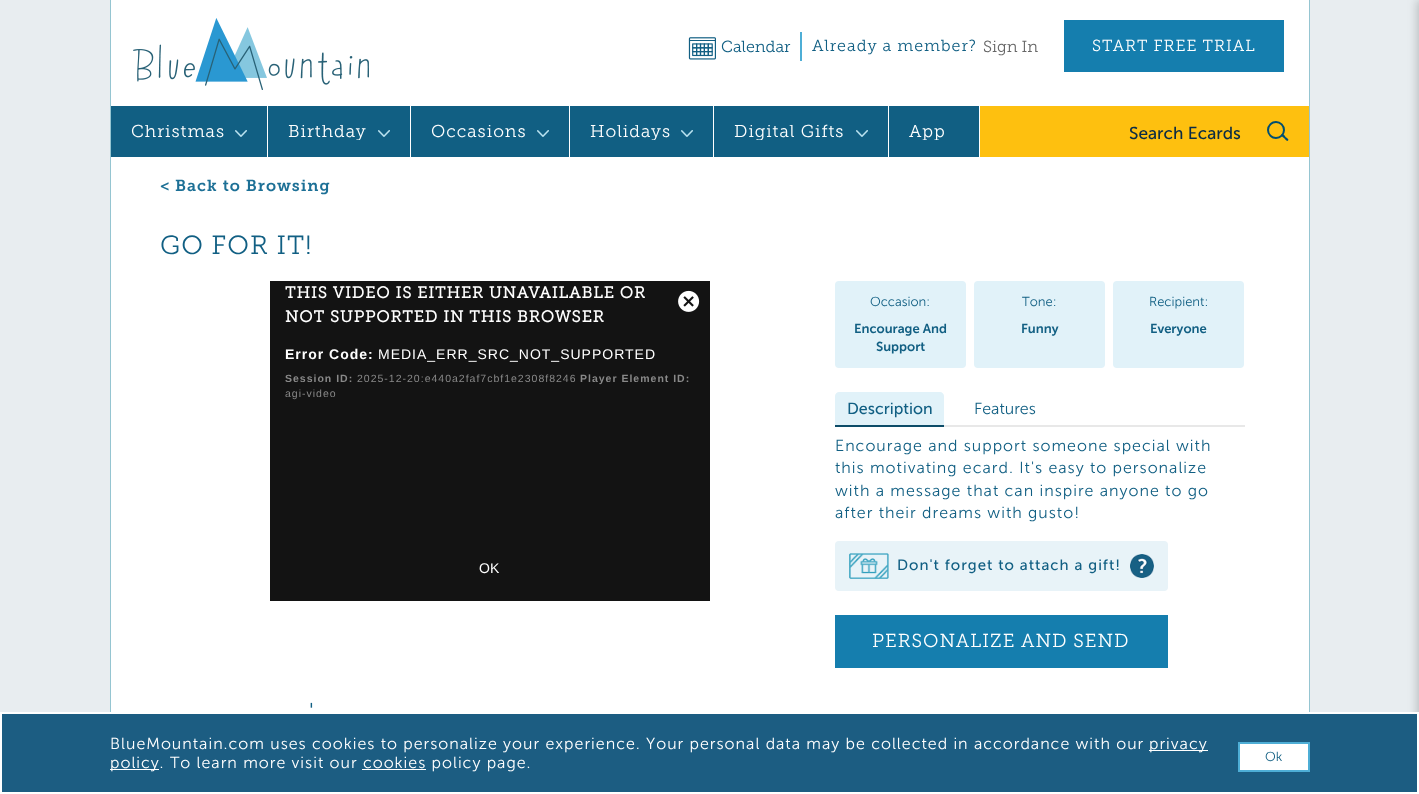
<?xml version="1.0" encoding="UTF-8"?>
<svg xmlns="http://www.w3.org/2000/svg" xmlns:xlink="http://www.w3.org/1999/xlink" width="1419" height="794">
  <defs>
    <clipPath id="clip1"><rect x="288" y="123" width="79" height="17" /></clipPath>
    <clipPath id="clip2"><rect x="590" y="123" width="81" height="17" /></clipPath>
    <clipPath id="clip3"><rect x="734" y="123" width="111" height="17" /></clipPath>
    <clipPath id="clip4"><rect x="909" y="123" width="36" height="17" /></clipPath>
  </defs>
  <rect width="100%" height="100%" fill="#e8edf0" />
  <rect x="111" width="1198" height="712" fill="#ffffff" />
  <rect x="1309" width="1" height="712" fill="#95c5d1" />
  <rect x="110" width="1" height="712" fill="#95c5d1" />
  <image x="133" y="18" width="236" height="72" xlink:href="image1.png" />
  <rect x="800" y="32" width="2" height="29" fill="#4eaed6" />
  <image x="688" y="37" width="28" height="23" xlink:href="image2.png" />
  <rect x="1064" y="20" width="220" height="52" fill="#157eae" />
  <rect x="111" y="106" width="868" height="51" fill="#115f83" />
  <image x="235" y="130" width="12" height="7" xlink:href="image3.png" />
  <rect x="267" y="106" width="1" height="51" fill="#ffffff" />
  <image x="378" y="130" width="12" height="7" xlink:href="image3.png" />
  <rect x="410" y="106" width="1" height="51" fill="#ffffff" />
  <image x="537" y="130" width="12" height="7" xlink:href="image3.png" />
  <rect x="569" y="106" width="1" height="51" fill="#ffffff" />
  <image x="681" y="130" width="12" height="7" xlink:href="image3.png" />
  <rect x="713" y="106" width="1" height="51" fill="#ffffff" />
  <image x="856" y="130" width="12" height="7" xlink:href="image3.png" />
  <rect x="888" y="106" width="1" height="51" fill="#ffffff" />
  <rect x="980" y="106" width="329" height="51" fill="#fec00f" />
  <circle cx="1276" cy="130" r="8" fill="none" stroke="#004e71" stroke-width="2" />
  <path d="M 1281.5 134.5 c 1.5 -1.5 3.5 1.5 4 2.5 c 0.5 0.5 4 2.5 2.5 3.5 c -1 1.5 -3 -1.5 -4 -2.5 c -0.5 -0.5 -3.5 -2.5 -2.5 -3.5 z" fill="#004e71" />
  <rect x="1417" width="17" height="794" fill="#000000" fill-opacity="0.2" filter="blur(5px)" />
  <rect x="270" y="281" width="440" height="320" fill="#131313" />
  <image x="678" y="290" width="22" height="22" xlink:href="image4.png" />
  <rect x="835" y="281" width="131" height="87" rx="4" fill="#e1f2f9" />
  <rect x="974" y="281" width="131" height="87" rx="4" fill="#e1f2f9" />
  <rect x="1113" y="281" width="131" height="87" rx="4" fill="#e1f2f9" />
  <path d="M 839 392 h 101 c 2 0 4 2 4 4 v 31 h -109 v -31 c 0 -2 2 -4 4 -4 z" fill="#e1f2f9" />
  <rect x="835" y="425" width="109" height="2" fill="#0d4c68" />
  <rect x="944" y="425" width="301" height="2" fill="#e8e8e8" />
  <rect x="835" y="541" width="333" height="50" rx="4" fill="#e8f3f8" />
  <image x="849" y="553" width="40" height="26" xlink:href="image5.png" />
  <image x="1130" y="554" width="24" height="24" xlink:href="image6.png" />
  <rect x="835" y="615" width="333" height="53" fill="#157eae" />
  <rect x="1" y="713" width="1417" height="80" fill="#1c5d82" stroke="#ffffff" stroke-width="2" />
  <rect x="1149" y="750" width="59" height="1" fill="#ffffff" />
  <rect x="110" y="769" width="49" height="1" fill="#ffffff" />
  <rect x="362" y="769" width="64" height="1" fill="#ffffff" />
  <rect x="1239" y="743" width="70" height="28" fill="#ffffff" stroke="#4eaed6" stroke-width="2" />
  <text x="721" y="52" style="font-family: 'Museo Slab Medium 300'; font-size: 16px; font-weight: 300; fill: #115f83">Calendar</text>
  <text x="812" y="51" style="font-family: 'Museo Slab Medium 300'; font-size: 16px; font-weight: 300; letter-spacing: 1px; fill: #115f83">Already a member?</text>
  <text x="983" y="52" style="font-family: 'Museo Slab Medium 300'; font-size: 16px; font-weight: 300; fill: #666666">Sign In</text>
  <text x="1092" y="51" style="font-family: 'Museo Slab Medium 300'; font-size: 16px; font-weight: 300; letter-spacing: 1px; fill: #ffffff">START FREE TRIAL</text>
  <text x="131" y="137" style="font-family: 'Museo Slab Medium 300'; font-size: 17.25px; font-weight: 300; letter-spacing: 1px; fill: #ffffff">Christmas</text>
  <g clip-path="url(#clip1)">
    <text x="288" y="137" style="font-family: 'Museo Slab Medium 300'; font-size: 17.25px; font-weight: 300; letter-spacing: 1px; fill: #ffffff">Birthday</text>
  </g>
  <text x="431" y="137" style="font-family: 'Museo Slab Medium 300'; font-size: 17.25px; font-weight: 300; letter-spacing: 1px; fill: #ffffff">Occasions</text>
  <g clip-path="url(#clip2)">
    <text x="590" y="137" style="font-family: 'Museo Slab Medium 300'; font-size: 17.25px; font-weight: 300; letter-spacing: 1px; fill: #ffffff">Holidays</text>
  </g>
  <g clip-path="url(#clip3)">
    <text x="734" y="137" style="font-family: 'Museo Slab Medium 300'; font-size: 17.25px; font-weight: 300; letter-spacing: 1px; fill: #ffffff">Digital Gifts</text>
  </g>
  <g clip-path="url(#clip4)">
    <text x="909" y="137" style="font-family: 'Museo Slab Medium 300'; font-size: 17.25px; font-weight: 300; letter-spacing: 1px; fill: #ffffff">App</text>
  </g>
  <text x="1129" y="139" style="font-family: 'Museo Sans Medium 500'; font-size: 17.25px; fill: #0a2b45">Search Ecards</text>
  <text x="160" y="191" style="font-family: 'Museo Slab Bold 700'; font-size: 16px; font-weight: 600; letter-spacing: 1px; fill: #1d7096">&lt;</text>
  <text x="175" y="191" style="font-family: 'Museo Slab Bold 700'; font-size: 16px; font-weight: 600; letter-spacing: 1px; fill: #1d7096">Back to Browsing</text>
  <text x="160" y="254" style="font-family: 'Museo Slab Medium 300'; font-size: 26.25px; font-weight: 300; letter-spacing: 1px; fill: #115f83">GO FOR IT!</text>
  <text x="285" y="298" style="font-family: 'Museo Slab Medium 300'; font-size: 16px; font-weight: bold; letter-spacing: 1px; fill: #ffffff">THIS VIDEO IS EITHER UNAVAILABLE OR</text>
  <text x="285" y="322" style="font-family: 'Museo Slab Medium 300'; font-size: 16px; font-weight: bold; letter-spacing: 1px; fill: #ffffff">NOT SUPPORTED IN THIS BROWSER</text>
  <text x="285" y="359" style="font-family: Liberation Sans; font-size: 14px; font-weight: bold; letter-spacing: 1px; fill: #ffffff">Error Code:</text>
  <text x="378" y="359" style="font-family: Liberation Sans; font-size: 14px; letter-spacing: 1px; fill: #ffffff">MEDIA_ERR_SRC_NOT_SUPPORTED</text>
  <text x="285" y="382" style="font-family: Liberation Sans; font-size: 10.5px; font-weight: bold; letter-spacing: 1px; fill: #898989">Session ID:</text>
  <text x="357" y="382" style="font-family: Liberation Sans; font-size: 10.5px; letter-spacing: 1px; fill: #898989">2025-12-20:e440a2faf7cbf1e2308f8246</text>
  <text x="580" y="382" style="font-family: Liberation Sans; font-size: 10.5px; font-weight: bold; letter-spacing: 1px; fill: #898989">Player Element ID:</text>
  <text x="285" y="397" style="font-family: Liberation Sans; font-size: 10.5px; letter-spacing: 1px; fill: #898989">agi-video</text>
  <text x="479" y="573" style="font-family: Liberation Sans; font-size: 14px; fill: #ffffff">OK</text>
  <text x="870" y="306" style="font-family: 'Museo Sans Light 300'; font-size: 13px; font-weight: 300; fill: #115f83">Occasion:</text>
  <text x="854" y="333" style="font-family: 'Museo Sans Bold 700'; font-size: 13px; font-weight: 600; fill: #115f83">Encourage And</text>
  <text x="876" y="351" style="font-family: 'Museo Sans Bold 700'; font-size: 13px; font-weight: 600; fill: #115f83">Support</text>
  <text x="1022" y="306" style="font-family: 'Museo Sans Light 300'; font-size: 13px; font-weight: 300; fill: #115f83">Tone:</text>
  <text x="1021" y="333" style="font-family: 'Museo Sans Bold 700'; font-size: 13px; font-weight: 600; fill: #115f83">Funny</text>
  <text x="1149" y="306" style="font-family: 'Museo Sans Light 300'; font-size: 13px; font-weight: 300; fill: #115f83">Recipient:</text>
  <text x="1150" y="333" style="font-family: 'Museo Sans Bold 700'; font-size: 13px; font-weight: 600; fill: #115f83">Everyone</text>
  <text x="847" y="414" style="font-family: 'Museo Sans Medium 500'; font-size: 16px; fill: #115f83">Description</text>
  <text x="974" y="414" style="font-family: 'Museo Sans Light 300'; font-size: 16px; font-weight: 300; fill: #115f83">Features</text>
  <text x="835" y="451" style="font-family: 'Museo Sans Light 300'; font-size: 16px; font-weight: 300; letter-spacing: 1px; fill: #115f83">Encourage and support someone special with</text>
  <text x="835" y="473" style="font-family: 'Museo Sans Light 300'; font-size: 16px; font-weight: 300; letter-spacing: 1px; fill: #115f83">this motivating ecard. It's easy to personalize</text>
  <text x="835" y="496" style="font-family: 'Museo Sans Light 300'; font-size: 16px; font-weight: 300; letter-spacing: 1px; fill: #115f83">with a message that can inspire anyone to go</text>
  <text x="835" y="518" style="font-family: 'Museo Sans Light 300'; font-size: 16px; font-weight: 300; letter-spacing: 1px; fill: #115f83">after their dreams with gusto!</text>
  <text x="897" y="570" style="font-family: 'Museo Sans Medium 500'; font-size: 15px; letter-spacing: 1px; fill: #115f83">Don't forget to attach a gift!</text>
  <text x="872" y="647" style="font-family: 'Museo Slab Medium 300'; font-size: 18.7px; font-weight: 300; letter-spacing: 1px; fill: #ffffff">PERSONALIZE AND SEND</text>
  <text x="309" y="720" style="font-family: 'Museo Slab Medium 300'; font-size: 24px; font-weight: 300; letter-spacing: 1px; fill: #115f83">'</text>
  <text x="110" y="749" style="font-family: 'Museo Sans Light 300'; font-size: 16px; font-weight: 300; letter-spacing: 1px; fill: #ffffff">BlueMountain.com uses cookies to personalize your experience. Your personal data may be collected in accordance with our</text>
  <text x="1149" y="749" style="font-family: 'Museo Sans Light 300'; font-size: 16px; font-weight: 300; letter-spacing: 1px; fill: #ffffff">privacy</text>
  <text x="110" y="768" style="font-family: 'Museo Sans Light 300'; font-size: 16px; font-weight: 300; letter-spacing: 1px; fill: #ffffff">policy. To learn more visit our cookies policy page.</text>
  <text x="1265" y="761" style="font-family: 'Museo Sans Light 300'; font-size: 13px; font-weight: 300; fill: #115f83">Ok</text>
</svg>
